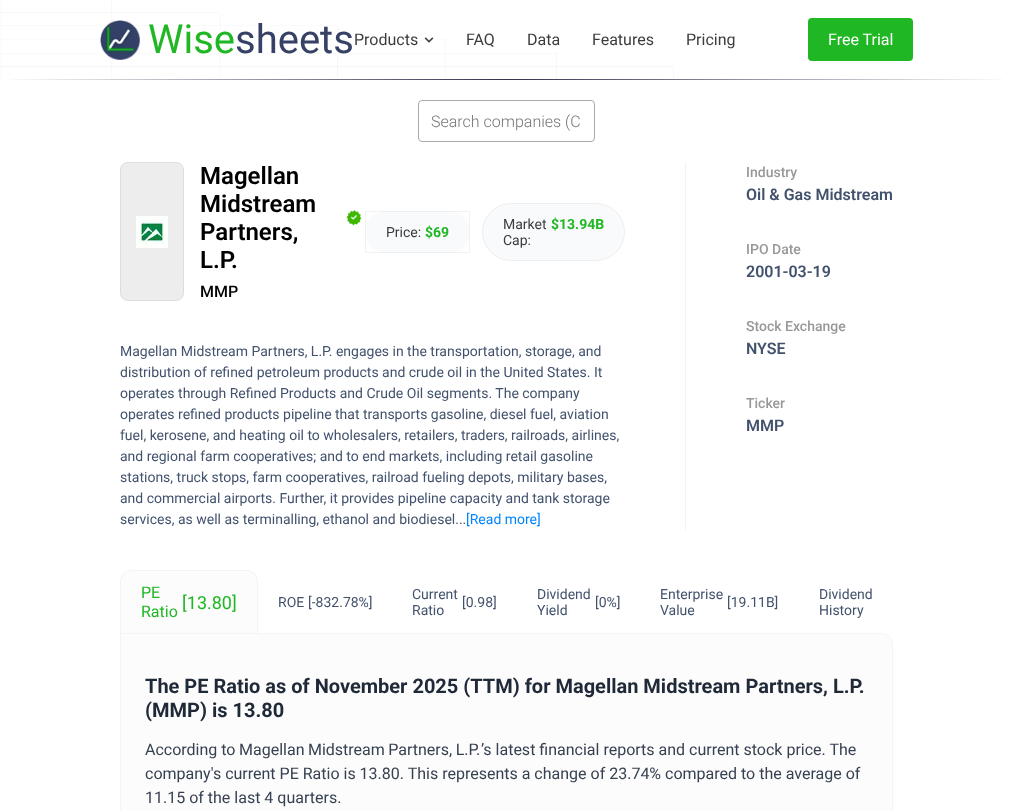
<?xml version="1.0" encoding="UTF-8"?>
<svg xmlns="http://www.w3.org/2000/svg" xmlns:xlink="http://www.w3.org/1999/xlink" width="1013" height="811">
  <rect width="100%" height="100%" fill="#ffffff" />
  <image x="0" y="0" width="674" height="79" xlink:href="image1.png" />
  <image x="10" y="79" width="993" height="1" xlink:href="image2.png" />
  <image x="100" y="20" width="40" height="40" xlink:href="image3.png" />
  <image x="424" y="37" width="10" height="6" xlink:href="image4.png" />
  <rect x="808" y="18" width="105" height="43" rx="4" fill="#1fb723" />
  <rect x="418.5" y="100.5" width="176" height="41" rx="3.5" fill="none" stroke="#aaaaaa" />
  <rect x="120.5" y="162.5" width="63" height="138" rx="7.5" fill="#ededed" stroke="#dddddd" />
  <image x="136" y="216" width="32" height="32" xlink:href="image5.png" />
  <image x="346" y="210" width="16" height="16" xlink:href="image6.png" />
  <rect x="365" y="211" width="105" height="42" rx="21" fill="#f9fafb" />
  <rect x="365.5" y="211.5" width="104" height="41" fill="none" stroke="#000000" stroke-opacity="0.05" />
  <rect x="482.5" y="203.5" width="142" height="57" rx="28.5" fill="#f9fafb" stroke="#edeeef" />
  <rect x="685" y="162" width="1" height="368" fill="#f2f2f2" />
  <path d="M 132 571 h 114 c 6 0 11 5 11 11 v 51 h -136 v -51 c 0 -6 5 -11 11 -11 z" fill="#fcfcfc" />
  <path d="M 132 570 h 114 c 7 0 12 5 12 12 v 51 h -138 v -51 c 0 -7 5 -12 12 -12 z m 0 1 h 114 c 6 0 11 5 11 11 v 51 h -136 v -51 c 0 -6 5 -11 11 -11 z" fill="#f3f4f6" fill-rule="evenodd" />
  <path d="M 120 633 h 761 c 6.5 0 12 5.5 12 12 v 166 h -773 z" fill="#fcfcfc" />
  <path d="M 120.5 633.5 h 760.5 c 6.5 0 11.5 5 11.5 11.5 v 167 c 0 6.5 -5 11.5 -11.5 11.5 h -749 c -6.5 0 -11.5 -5 -11.5 -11.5 z" fill="none" stroke="#f3f4f6" />
  <text x="148" y="53" style="font-family: Roboto; font-size: 40px; fill: #1fb723">Wise</text>
  <text x="235" y="53" style="font-family: Roboto; font-size: 40px; fill: #364165">sheets</text>
  <text x="354" y="45" style="font-family: Roboto; font-size: 16px; fill: #3c3c3c">Products</text>
  <text x="466" y="45" style="font-family: Roboto; font-size: 16px; fill: #3c3c3c">FAQ</text>
  <text x="527" y="45" style="font-family: Roboto; font-size: 16px; fill: #3c3c3c">Data</text>
  <text x="592" y="45" style="font-family: Roboto; font-size: 16px; fill: #3c3c3c">Features</text>
  <text x="686" y="45" style="font-family: Roboto; font-size: 16px; fill: #3c3c3c">Pricing</text>
  <text x="828" y="45" style="font-family: Roboto; font-size: 16px; fill: #ffffff">Free Trial</text>
  <text x="431" y="127" style="font-family: Roboto; font-size: 16px; font-weight: 300; fill: #757575">Search companies (C</text>
  <text x="200" y="184" style="font-family: Roboto; font-size: 24px; font-weight: 600; fill: #000000">Magellan</text>
  <text x="200" y="212" style="font-family: Roboto; font-size: 24px; font-weight: 600; fill: #000000">Midstream</text>
  <text x="200" y="240" style="font-family: Roboto; font-size: 24px; font-weight: 600; fill: #000000">Partners,</text>
  <text x="200" y="268" style="font-family: Roboto; font-size: 24px; font-weight: 600; fill: #000000">L.P.</text>
  <text x="200" y="297" style="font-family: Roboto; font-size: 16px; font-weight: 500; fill: #000000">MMP</text>
  <text x="386" y="237" style="font-family: Roboto; font-size: 14px; fill: #3c3c3c">Price:</text>
  <text x="425" y="237" style="font-family: Roboto; font-size: 14px; font-weight: bold; fill: #1fb723">$69</text>
  <text x="503" y="229" style="font-family: Roboto; font-size: 14px; fill: #3c3c3c">Market</text>
  <text x="503" y="245" style="font-family: Roboto; font-size: 14px; fill: #3c3c3c">Cap:</text>
  <text x="551" y="229" style="font-family: Roboto; font-size: 14px; font-weight: bold; fill: #1fb723">$13.94B</text>
  <text x="120" y="356" style="font-family: Roboto; font-size: 14px; fill: #42526d">Magellan Midstream Partners, L.P. engages in the transportation, storage, and</text>
  <text x="120" y="377" style="font-family: Roboto; font-size: 14px; fill: #42526d">distribution of refined petroleum products and crude oil in the United States. It</text>
  <text x="120" y="398" style="font-family: Roboto; font-size: 14px; fill: #42526d">operates through Refined Products and Crude Oil segments. The company</text>
  <text x="120" y="419" style="font-family: Roboto; font-size: 14px; fill: #42526d">operates refined products pipeline that transports gasoline, diesel fuel, aviation</text>
  <text x="120" y="440" style="font-family: Roboto; font-size: 14px; fill: #42526d">fuel, kerosene, and heating oil to wholesalers, retailers, traders, railroads, airlines,</text>
  <text x="120" y="461" style="font-family: Roboto; font-size: 14px; fill: #42526d">and regional farm cooperatives; and to end markets, including retail gasoline</text>
  <text x="120" y="482" style="font-family: Roboto; font-size: 14px; fill: #42526d">stations, truck stops, farm cooperatives, railroad fueling depots, military bases,</text>
  <text x="120" y="503" style="font-family: Roboto; font-size: 14px; fill: #42526d">and commercial airports. Further, it provides pipeline capacity and tank storage</text>
  <text x="120" y="524" style="font-family: Roboto; font-size: 14px; fill: #42526d">services, as well as terminalling, ethanol and biodiesel...</text>
  <text x="466" y="524" style="font-family: Roboto; font-size: 14px; fill: #0084ff">[Read more]</text>
  <text x="746" y="177" style="font-family: Roboto; font-size: 14px; font-weight: 500; fill: #98989a">Industry</text>
  <text x="746" y="200" style="font-family: Roboto; font-size: 16px; font-weight: 600; fill: #42526d">Oil &amp; Gas Midstream</text>
  <text x="746" y="254" style="font-family: Roboto; font-size: 14px; font-weight: 500; fill: #98989a">IPO Date</text>
  <text x="746" y="277" style="font-family: Roboto; font-size: 16px; font-weight: 600; fill: #42526d">2001-03-19</text>
  <text x="746" y="331" style="font-family: Roboto; font-size: 14px; font-weight: 500; fill: #98989a">Stock Exchange</text>
  <text x="746" y="354" style="font-family: Roboto; font-size: 16px; font-weight: 600; fill: #42526d">NYSE</text>
  <text x="746" y="408" style="font-family: Roboto; font-size: 14px; font-weight: 500; fill: #98989a">Ticker</text>
  <text x="746" y="431" style="font-family: Roboto; font-size: 16px; font-weight: 600; fill: #42526d">MMP</text>
  <text x="141" y="598" style="font-family: Roboto; font-size: 16px; fill: #1fb723">PE</text>
  <text x="141" y="617" style="font-family: Roboto; font-size: 16px; fill: #1fb723">Ratio</text>
  <text x="182" y="609" style="font-family: Roboto; font-size: 18px; fill: #1fb723">[13.80]</text>
  <text x="278" y="607" style="font-family: Roboto; font-size: 14px; fill: #42526d">ROE</text>
  <text x="308" y="607" style="font-family: Roboto; font-size: 14px; fill: #42526d">[-832.78%]</text>
  <text x="412" y="599" style="font-family: Roboto; font-size: 14px; fill: #42526d">Current</text>
  <text x="412" y="615" style="font-family: Roboto; font-size: 14px; fill: #42526d">Ratio</text>
  <text x="462" y="607" style="font-family: Roboto; font-size: 14px; fill: #42526d">[0.98]</text>
  <text x="537" y="599" style="font-family: Roboto; font-size: 14px; fill: #42526d">Dividend</text>
  <text x="537" y="615" style="font-family: Roboto; font-size: 14px; fill: #42526d">Yield</text>
  <text x="595" y="607" style="font-family: Roboto; font-size: 14px; fill: #42526d">[0%]</text>
  <text x="660" y="599" style="font-family: Roboto; font-size: 14px; fill: #42526d">Enterprise</text>
  <text x="660" y="615" style="font-family: Roboto; font-size: 14px; fill: #42526d">Value</text>
  <text x="727" y="607" style="font-family: Roboto; font-size: 14px; fill: #42526d">[19.11B]</text>
  <text x="819" y="599" style="font-family: Roboto; font-size: 14px; fill: #42526d">Dividend</text>
  <text x="819" y="615" style="font-family: Roboto; font-size: 14px; fill: #42526d">History</text>
  <text x="145" y="693" style="font-family: Roboto; font-size: 20px; font-weight: bold; fill: #1f2937">The PE Ratio as of November 2025 (TTM) for Magellan Midstream Partners, L.P.</text>
  <text x="145" y="717" style="font-family: Roboto; font-size: 20px; font-weight: bold; fill: #1f2937">(MMP) is 13.80</text>
  <text x="145" y="755" style="font-family: Roboto; font-size: 16px; fill: #374151">According to</text>
  <text x="239" y="755" word-spacing="-0.5" style="font-family: Roboto; font-size: 16px; fill: #374151">Magellan Midstream Partners, L.P.</text>
  <text x="481" y="755" style="font-family: Roboto; font-size: 16px; fill: #374151">’s latest financial reports and current stock price. The</text>
  <text x="145" y="779" style="font-family: Roboto; font-size: 16px; fill: #374151">company's current PE Ratio is 13.80. This represents a change of 23.74% compared to the average of</text>
  <text x="145" y="803" style="font-family: Roboto; font-size: 16px; fill: #374151">11.15 of the last 4 quarters.</text>
</svg>
